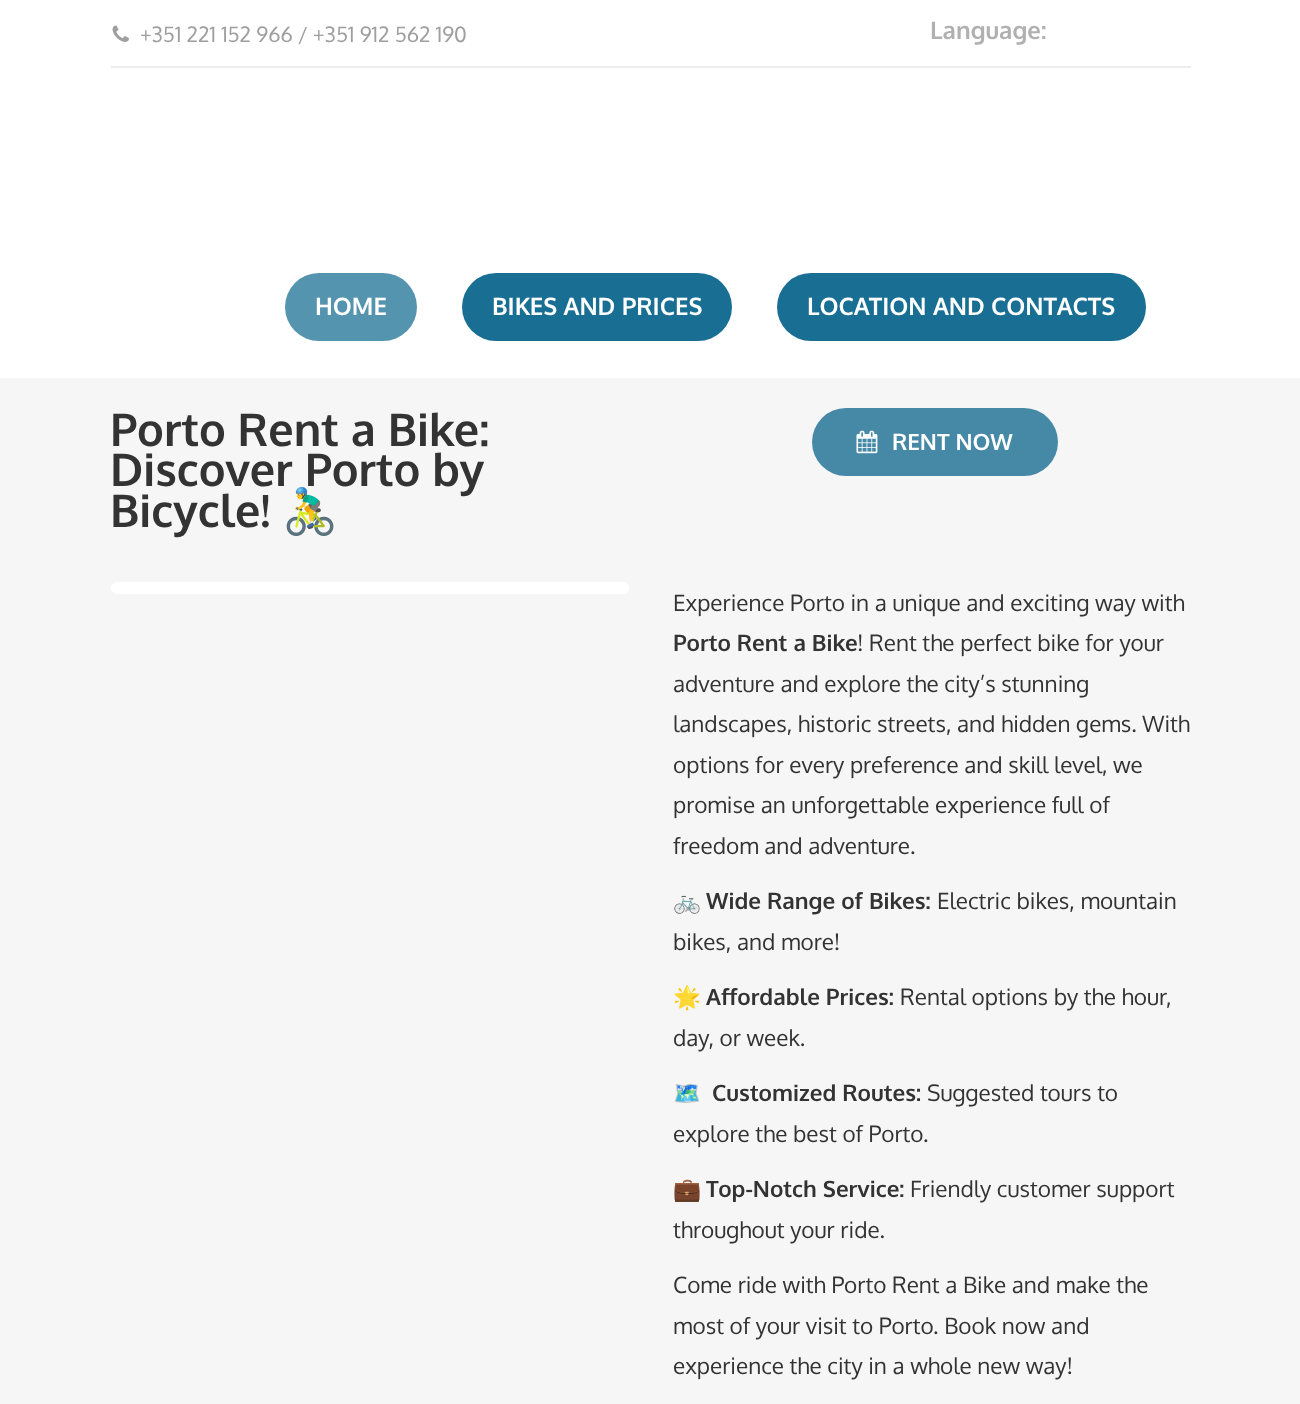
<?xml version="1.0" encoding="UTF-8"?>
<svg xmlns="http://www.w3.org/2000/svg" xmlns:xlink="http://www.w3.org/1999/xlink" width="1300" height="1404">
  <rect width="100%" height="100%" fill="#f6f6f6" />
  <rect width="1300" height="378" fill="#ffffff" />
  <image x="112" y="25" width="17" height="17" xlink:href="image1.png" />
  <rect x="111" y="66" width="1080" height="2" fill="#ececec" />
  <rect x="285" y="273" width="132" height="68" rx="34" fill="#5594af" />
  <rect x="462" y="273" width="270" height="68" rx="34" fill="#196e93" />
  <rect x="777" y="273" width="369" height="68" rx="34" fill="#196e93" />
  <rect x="812" y="408" width="246" height="68" rx="34" fill="#4589a7" />
  <image x="856" y="430" width="22" height="24" xlink:href="image2.png" />
  <rect x="111" y="582" width="518" height="12" rx="6" fill="#ffffff" />
  <text x="140" y="42" style="font-family: Oxygen; font-size: 21px; fill: #9f9f9f">+351 221 152 966 / +351 912 562 190</text>
  <text x="930" y="39" style="font-family: Oxygen; font-size: 24px; font-weight: bold; fill: #b0b0b0">Language:</text>
  <text x="315" y="315" style="font-family: Oxygen; font-size: 24px; font-weight: bold; fill: #ffffff">HOME</text>
  <text x="492" y="315" style="font-family: Oxygen; font-size: 24px; font-weight: bold; fill: #ffffff">BIKES AND PRICES</text>
  <text x="807" y="315" style="font-family: Oxygen; font-size: 24px; font-weight: bold; fill: #ffffff">LOCATION AND CONTACTS</text>
  <text x="110" y="446" style="font-family: Oxygen; font-size: 45px; font-weight: bold; fill: #333333">Porto Rent a Bike:</text>
  <text x="110" y="486" style="font-family: Oxygen; font-size: 45px; font-weight: bold; fill: #333333">Discover Porto by</text>
  <text x="110" y="527" style="font-family: Oxygen; font-size: 45px; font-weight: bold; fill: #333333">Bicycle!</text>
  <text x="282" y="527" style="font-family: Noto Color Emoji; font-size: 45px; font-weight: bold; fill: #333333">🚴‍♂️</text>
  <text x="892" y="450" style="font-family: Oxygen; font-size: 22.5px; font-weight: bold; fill: #ffffff">RENT NOW</text>
  <text x="673" y="611" style="font-family: Oxygen; font-size: 22.5px; fill: #333333">Experience Porto in a unique and exciting way with</text>
  <text x="673" y="651" style="font-family: Oxygen; font-size: 22.5px; font-weight: bold; fill: #333333">Porto Rent a Bike</text>
  <text x="857" y="651" style="font-family: Oxygen; font-size: 22.5px; fill: #333333">! Rent the perfect bike for your</text>
  <text x="673" y="692" style="font-family: Oxygen; font-size: 22.5px; fill: #333333">adventure and explore the city’s stunning</text>
  <text x="673" y="732" style="font-family: Oxygen; font-size: 22.5px; fill: #333333">landscapes, historic streets, and hidden gems. With</text>
  <text x="673" y="773" style="font-family: Oxygen; font-size: 22.5px; fill: #333333">options for every preference and skill level, we</text>
  <text x="673" y="813" style="font-family: Oxygen; font-size: 22.5px; fill: #333333">promise an unforgettable experience full of</text>
  <text x="673" y="854" style="font-family: Oxygen; font-size: 22.5px; fill: #333333">freedom and adventure.</text>
  <text x="673" y="909" style="font-family: Noto Color Emoji; font-size: 22.5px; fill: #333333">🚲</text>
  <text x="706" y="909" style="font-family: Oxygen; font-size: 22.5px; font-weight: bold; fill: #333333">Wide Range of Bikes:</text>
  <text x="937" y="909" style="font-family: Oxygen; font-size: 22.5px; fill: #333333">Electric bikes, mountain</text>
  <text x="673" y="950" style="font-family: Oxygen; font-size: 22.5px; fill: #333333">bikes, and more!</text>
  <text x="673" y="1005" style="font-family: Noto Color Emoji; font-size: 22.5px; fill: #333333">🌟</text>
  <text x="706" y="1005" style="font-family: Oxygen; font-size: 22.5px; font-weight: bold; fill: #333333">Affordable Prices:</text>
  <text x="900" y="1005" style="font-family: Oxygen; font-size: 22.5px; fill: #333333">Rental options by the hour,</text>
  <text x="673" y="1046" style="font-family: Oxygen; font-size: 22.5px; fill: #333333">day, or week.</text>
  <text x="673" y="1101" style="font-family: Noto Color Emoji; font-size: 22.5px; fill: #333333">🗺️</text>
  <text x="712" y="1101" style="font-family: Oxygen; font-size: 22.5px; font-weight: bold; fill: #333333">Customized Routes:</text>
  <text x="927" y="1101" style="font-family: Oxygen; font-size: 22.5px; fill: #333333">Suggested tours to</text>
  <text x="673" y="1142" style="font-family: Oxygen; font-size: 22.5px; fill: #333333">explore the best of Porto.</text>
  <text x="673" y="1197" style="font-family: Noto Color Emoji; font-size: 22.5px; fill: #333333">💼</text>
  <text x="706" y="1197" style="font-family: Oxygen; font-size: 22.5px; font-weight: bold; fill: #333333">Top-Notch Service:</text>
  <text x="910" y="1197" style="font-family: Oxygen; font-size: 22.5px; fill: #333333">Friendly customer support</text>
  <text x="673" y="1238" style="font-family: Oxygen; font-size: 22.5px; fill: #333333">throughout your ride.</text>
  <text x="673" y="1293" style="font-family: Oxygen; font-size: 22.5px; fill: #333333">Come ride with Porto Rent a Bike and make the</text>
  <text x="673" y="1334" style="font-family: Oxygen; font-size: 22.5px; fill: #333333">most of your visit to Porto. Book now and</text>
  <text x="673" y="1374" style="font-family: Oxygen; font-size: 22.5px; fill: #333333">experience the city in a whole new way!</text>
</svg>
